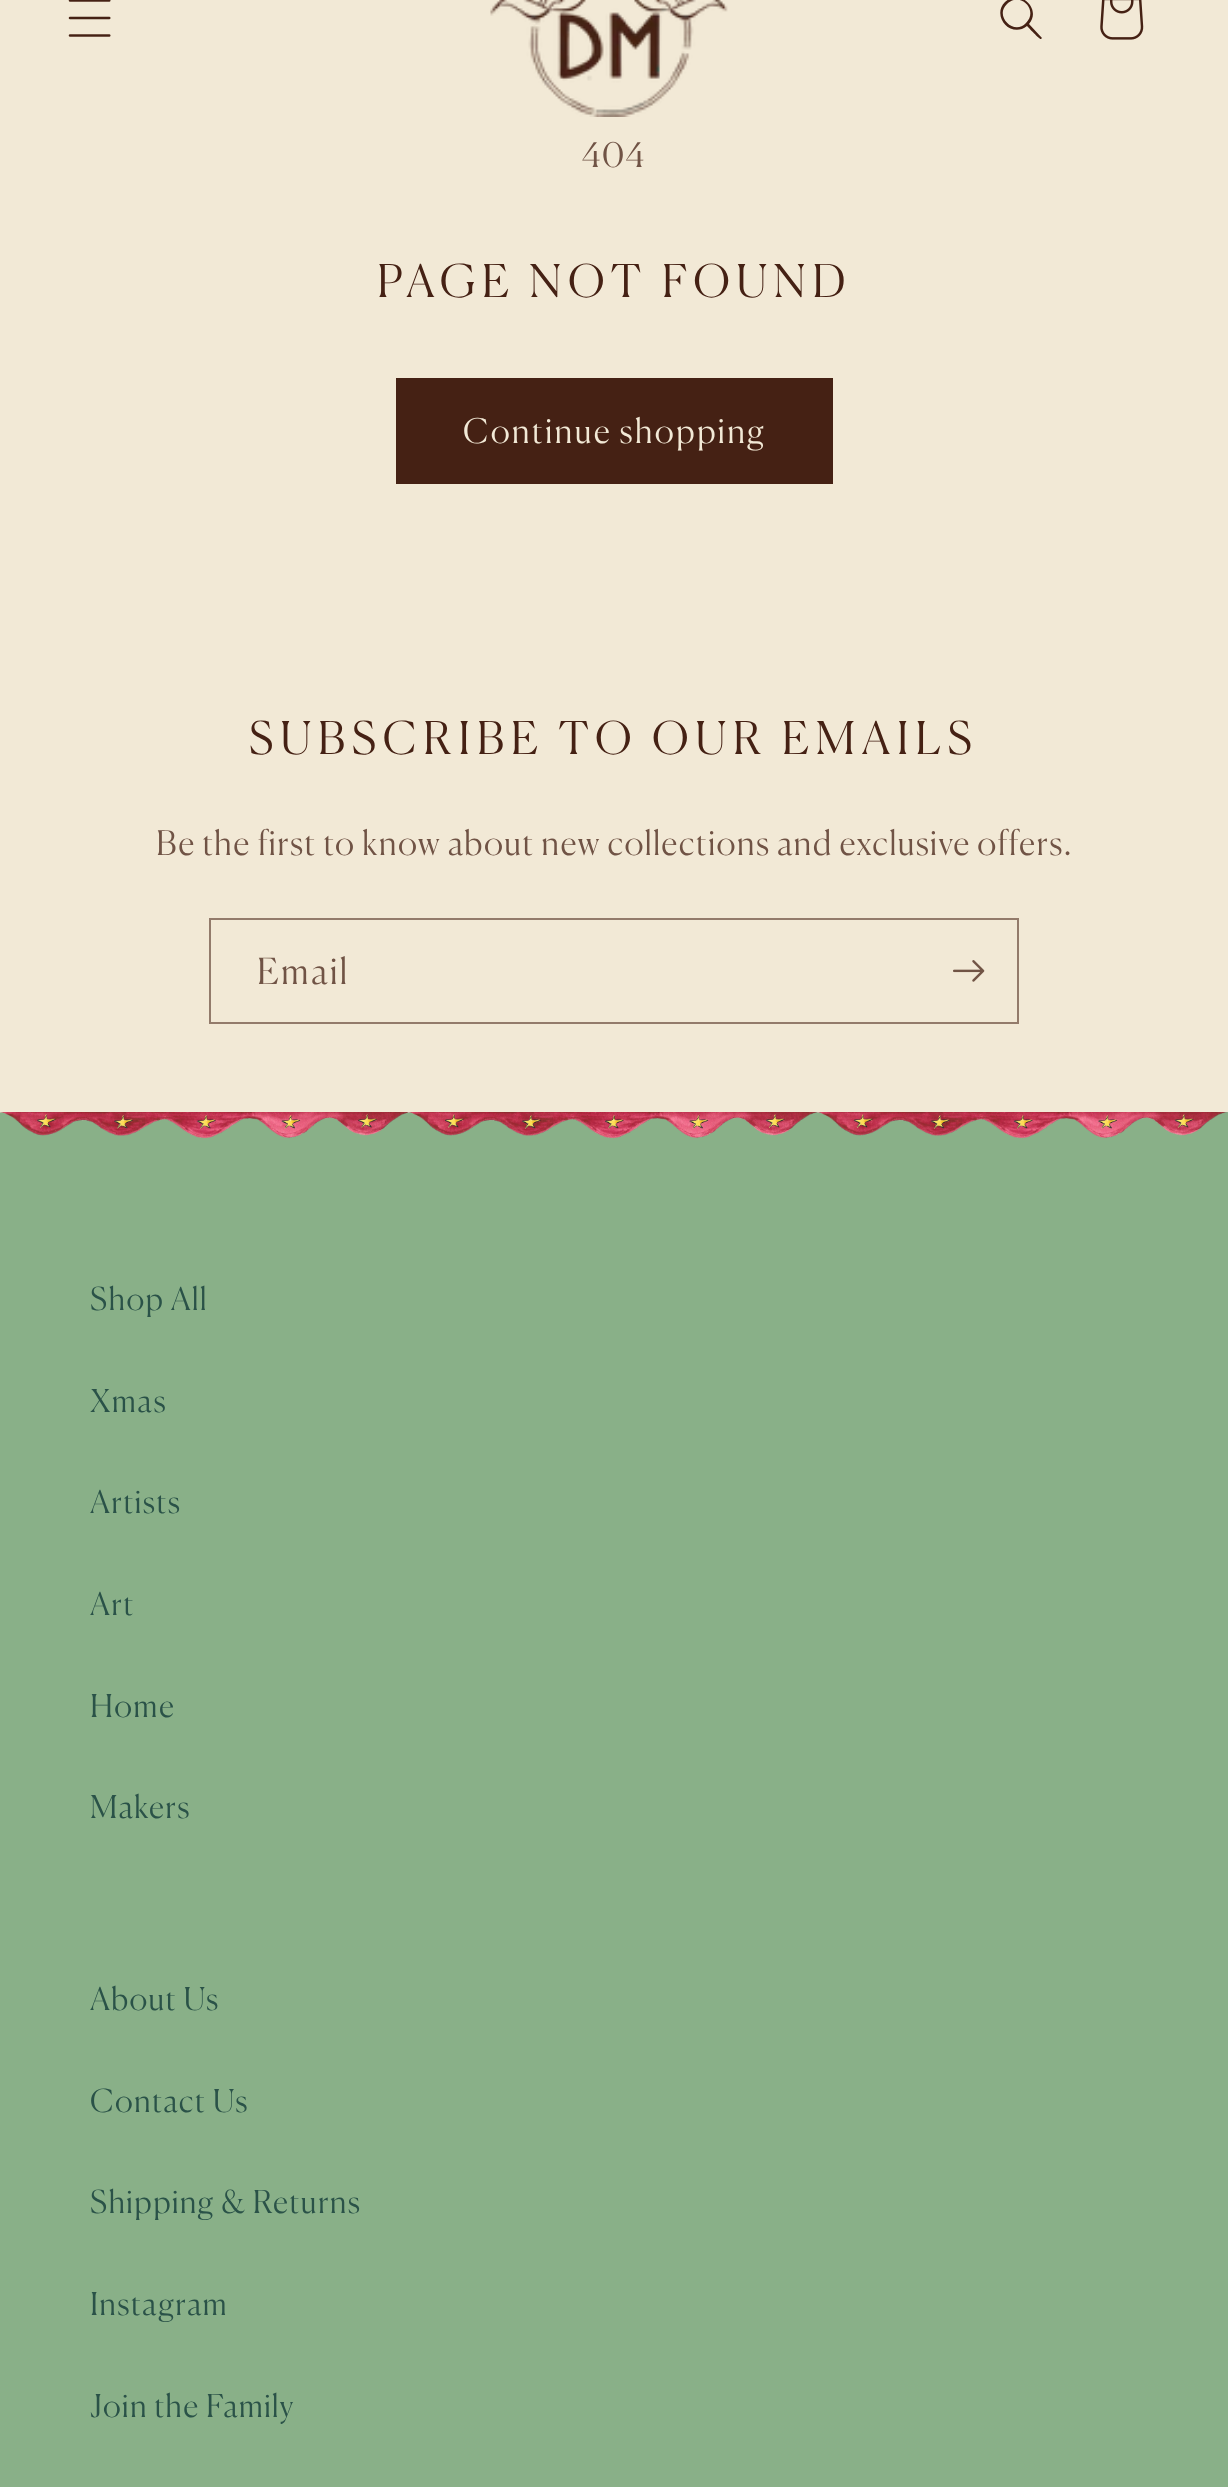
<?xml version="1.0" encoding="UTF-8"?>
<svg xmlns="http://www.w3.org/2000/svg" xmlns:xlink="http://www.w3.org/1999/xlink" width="1228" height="2487">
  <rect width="100%" height="100%" fill="#f2e9d6" />
  <image x="68" y="0" width="43" height="37" xlink:href="image1.png" />
  <image x="490" y="0" width="238" height="117" xlink:href="image2.png" />
  <path d="M 1026 23 c -12 13 -32 -7 -19 -19 c 13 -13 32 6 19 19 z m 1 3 c -16 13 -36 -10 -22 -24 c 15 -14 37 7 24 22 l 13 14 l -1 1 c -1 1 -12 -11 -14 -13 z" fill="#452114" fill-rule="evenodd" />
  <image x="1100" y="0" width="44" height="40" xlink:href="image3.png" />
  <rect x="396" y="378" width="437" height="106" fill="#452114" />
  <rect x="210" y="919" width="808" height="104" fill="none" stroke="#937b6b" stroke-width="2" />
  <image x="953" y="960" width="32" height="22" xlink:href="image4.png" />
  <rect y="1112" width="1228" height="1375" fill="#89b088" />
  <image x="0" y="1112" width="1228" height="27" xlink:href="image5.png" />
  <text x="582" y="167" style="font-family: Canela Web; font-size: 33.75px; font-weight: 300; letter-spacing: 1.35px; fill: #705345">404</text>
  <text x="377" y="297" style="font-family: Canela Web; font-size: 45px; font-weight: 300; letter-spacing: 6.75px; fill: #452114">PAGE NOT FOUND</text>
  <text x="463" y="443" style="font-family: Canela Web; font-size: 33.75px; font-weight: 300; letter-spacing: 2.25px; fill: #f2e9d6">Continue shopping</text>
  <text x="249" y="754" style="font-family: Canela Web; font-size: 45px; font-weight: 300; letter-spacing: 6.75px; fill: #452114">SUBSCRIBE TO OUR EMAILS</text>
  <text x="156" y="855" style="font-family: Canela Web; font-size: 33.75px; font-weight: 300; letter-spacing: 1.35px; fill: #705345">Be the first to know about new collections and exclusive offers.</text>
  <text x="257" y="984" style="font-family: Canela Web; font-size: 36px; font-weight: 300; letter-spacing: 2.25px; fill: #705345">Email</text>
  <text x="90" y="1310" style="font-family: Canela Web; font-size: 31.5px; font-weight: 300; letter-spacing: 1.35px; fill: #2a5248">Shop All</text>
  <text x="90" y="1412" style="font-family: Canela Web; font-size: 31.5px; font-weight: 300; letter-spacing: 1.35px; fill: #2a5248">Xmas</text>
  <text x="90" y="1513" style="font-family: Canela Web; font-size: 31.5px; font-weight: 300; letter-spacing: 1.35px; fill: #2a5248">Artists</text>
  <text x="90" y="1615" style="font-family: Canela Web; font-size: 31.5px; font-weight: 300; letter-spacing: 1.35px; fill: #2a5248">Art</text>
  <text x="90" y="1717" style="font-family: Canela Web; font-size: 31.5px; font-weight: 300; letter-spacing: 1.35px; fill: #2a5248">Home</text>
  <text x="90" y="1818" style="font-family: Canela Web; font-size: 31.5px; font-weight: 300; letter-spacing: 1.35px; fill: #2a5248">Makers</text>
  <text x="90" y="2010" style="font-family: Canela Web; font-size: 31.5px; font-weight: 300; letter-spacing: 1.35px; fill: #2a5248">About Us</text>
  <text x="90" y="2112" style="font-family: Canela Web; font-size: 31.5px; font-weight: 300; letter-spacing: 1.35px; fill: #2a5248">Contact Us</text>
  <text x="90" y="2213" style="font-family: Canela Web; font-size: 31.5px; font-weight: 300; letter-spacing: 1.35px; fill: #2a5248">Shipping &amp; Returns</text>
  <text x="90" y="2315" style="font-family: Canela Web; font-size: 31.5px; font-weight: 300; letter-spacing: 1.35px; fill: #2a5248">Instagram</text>
  <text x="90" y="2417" style="font-family: Canela Web; font-size: 31.5px; font-weight: 300; letter-spacing: 1.35px; fill: #2a5248">Join the Family</text>
</svg>
